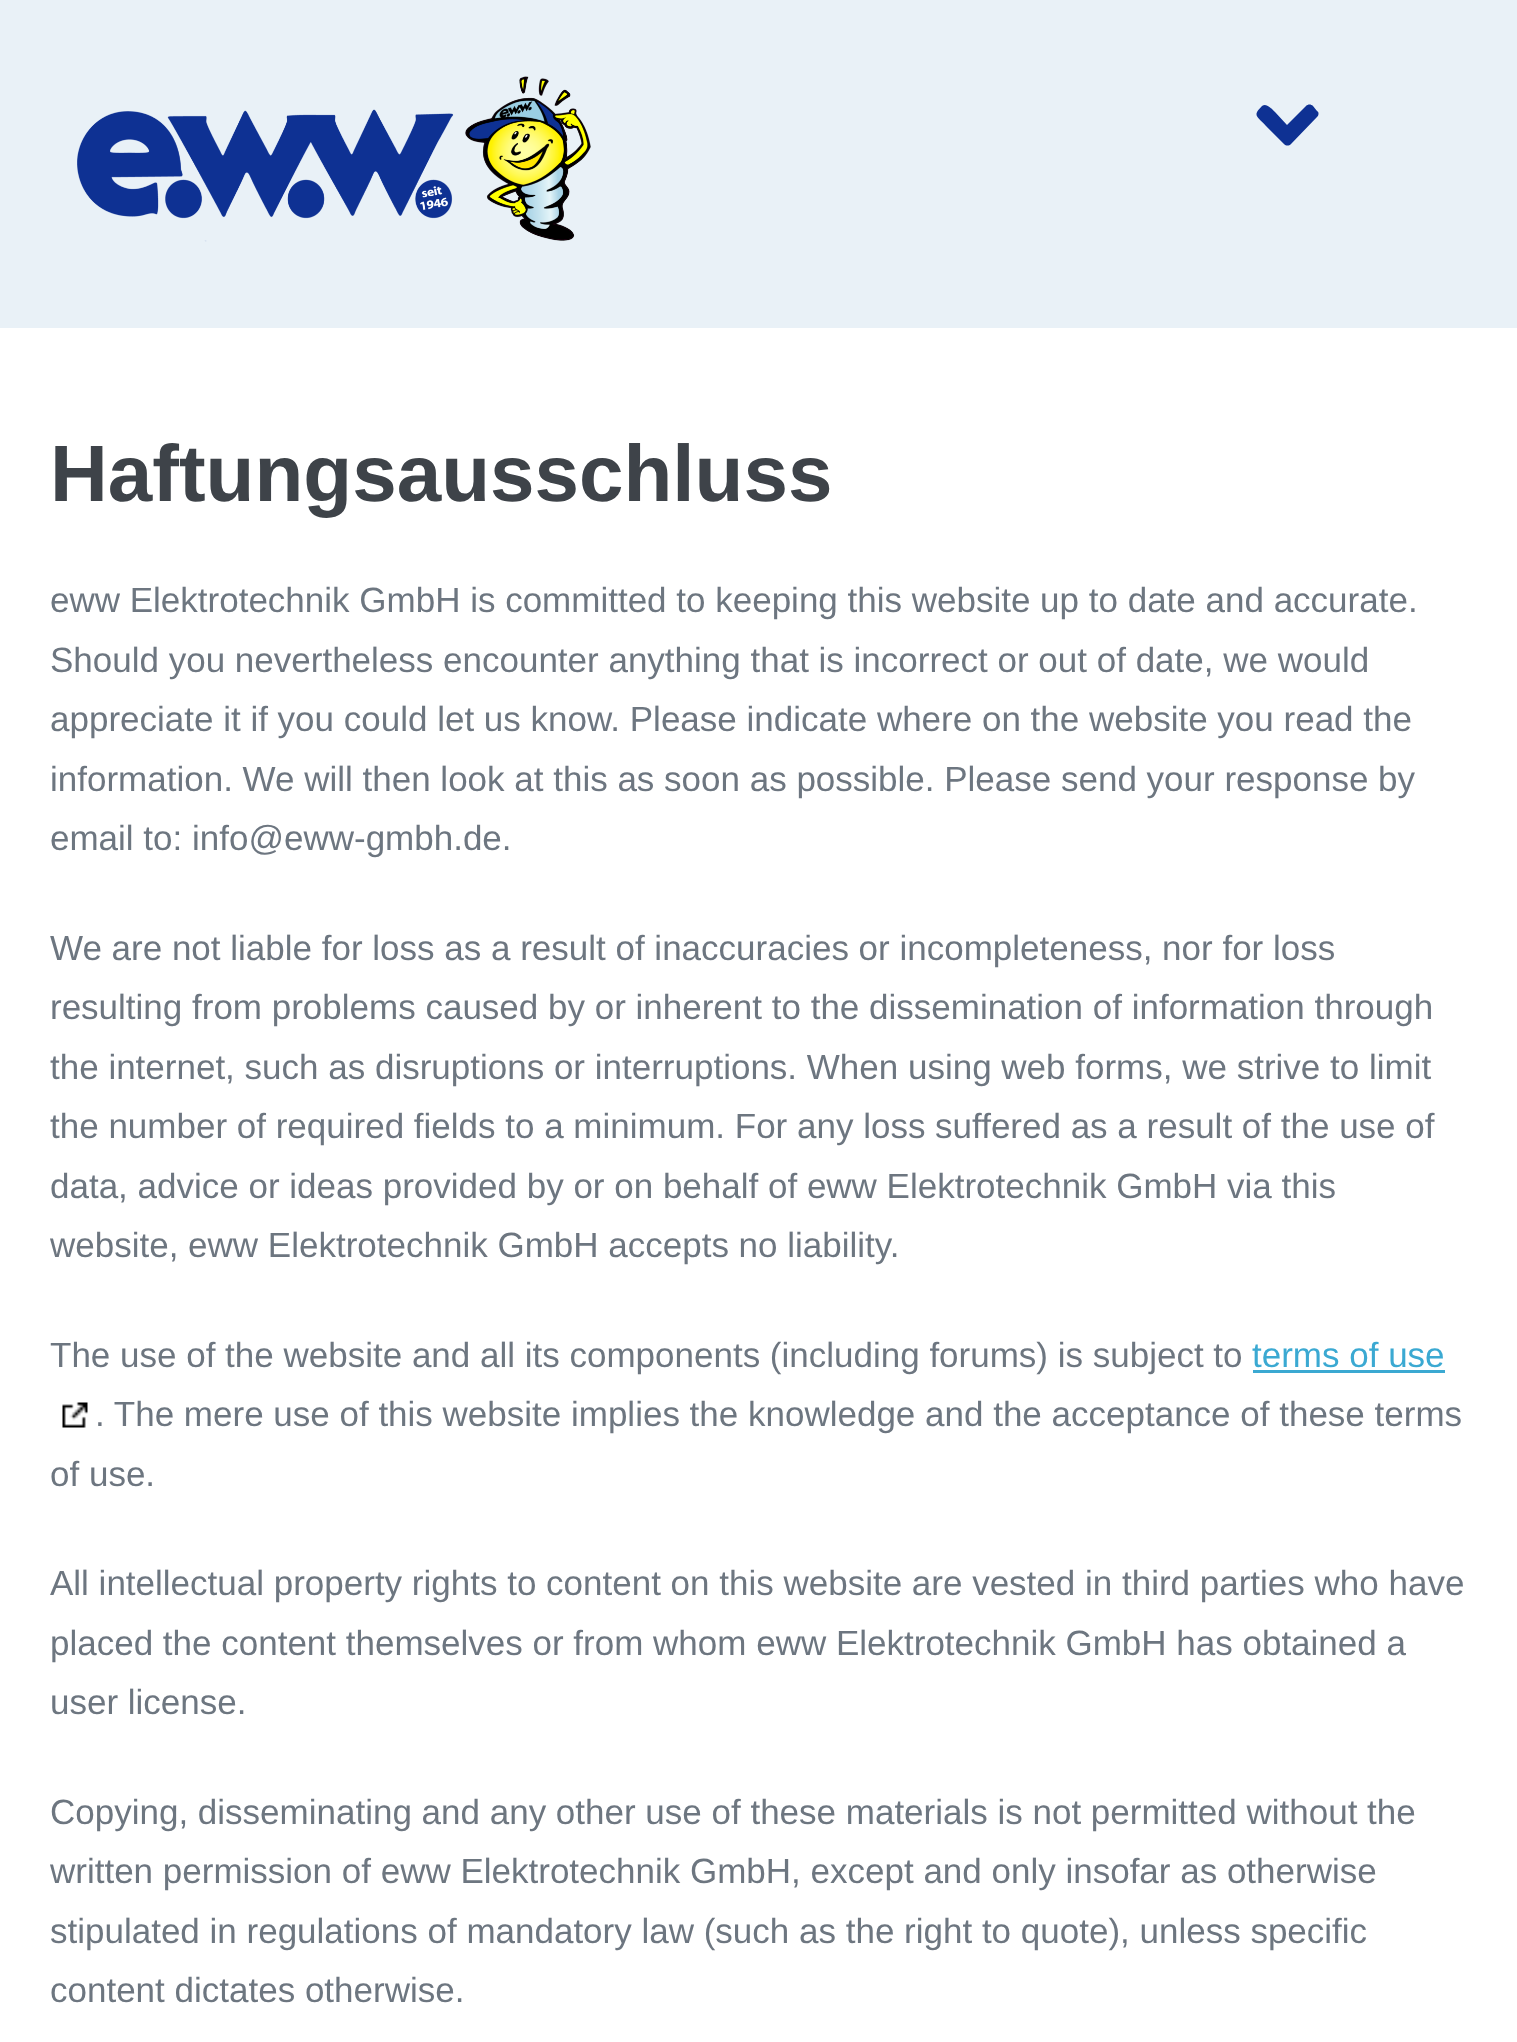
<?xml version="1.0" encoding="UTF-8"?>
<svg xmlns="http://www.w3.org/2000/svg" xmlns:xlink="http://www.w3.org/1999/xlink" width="1517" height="2042">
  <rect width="100%" height="100%" fill="#ffffff" />
  <rect width="1517" height="328" fill="#e9f1f7" />
  <image x="77" y="76" width="514" height="166" xlink:href="image1.png" />
  <path d="M 1284 144 l -18 -18 c -9 -10 -14 -10 -4 -20 c 5 -4 10 4 13 6 l 12 13 l 19 -19 c 2 -2 5 -2 7 0 l 4 5 c 2 1 2 4 0 6 l -26 27 c -2 2 -5 2 -7 0 z" fill="#0e3193" />
  <rect x="1253" y="1370" width="192" height="3" fill="#3ba9d2" />
  <image x="62" y="1402" width="26" height="26" xlink:href="image2.png" />
  <text x="50" y="501" style="font-family: Liberation Sans; font-size: 80px; font-weight: bold; fill: #3e4349">Haftungsausschluss</text>
  <text x="50" y="612" style="font-family: Liberation Sans; font-size: 35px; fill: #6d7680">eww Elektrotechnik GmbH is committed to keeping this website up to date and accurate.</text>
  <text x="50" y="672" style="font-family: Liberation Sans; font-size: 35px; fill: #6d7680">Should you nevertheless encounter anything that is incorrect or out of date, we would</text>
  <text x="50" y="731" style="font-family: Liberation Sans; font-size: 35px; fill: #6d7680">appreciate it if you could let us know. Please indicate where on the website you read the</text>
  <text x="50" y="791" style="font-family: Liberation Sans; font-size: 35px; fill: #6d7680">information. We will then look at this as soon as possible. Please send your response by</text>
  <text x="50" y="850" style="font-family: Liberation Sans; font-size: 35px; fill: #6d7680">email to: info@eww-gmbh.de.</text>
  <text x="50" y="960" style="font-family: Liberation Sans; font-size: 35px; fill: #6d7680">We are not liable for loss as a result of inaccuracies or incompleteness, nor for loss</text>
  <text x="50" y="1019" style="font-family: Liberation Sans; font-size: 35px; fill: #6d7680">resulting from problems caused by or inherent to the dissemination of information through</text>
  <text x="50" y="1079" style="font-family: Liberation Sans; font-size: 35px; fill: #6d7680">the internet, such as disruptions or interruptions. When using web forms, we strive to limit</text>
  <text x="50" y="1138" style="font-family: Liberation Sans; font-size: 35px; fill: #6d7680">the number of required fields to a minimum. For any loss suffered as a result of the use of</text>
  <text x="50" y="1198" style="font-family: Liberation Sans; font-size: 35px; fill: #6d7680">data, advice or ideas provided by or on behalf of eww Elektrotechnik GmbH via this</text>
  <text x="50" y="1257" style="font-family: Liberation Sans; font-size: 35px; fill: #6d7680">website, eww Elektrotechnik GmbH accepts no liability.</text>
  <text x="50" y="1367" style="font-family: Liberation Sans; font-size: 35px; fill: #6d7680">The use of the website and all its components (including forums) is subject to</text>
  <text x="1252" y="1367" style="font-family: Liberation Sans; font-size: 35px; fill: #3ba9d2">terms of use</text>
  <text x="95" y="1426" style="font-family: Liberation Sans; font-size: 35px; fill: #6d7680">. The mere use of this website implies the knowledge and the acceptance of these terms</text>
  <text x="50" y="1486" style="font-family: Liberation Sans; font-size: 35px; fill: #6d7680">of use.</text>
  <text x="50" y="1595" style="font-family: Liberation Sans; font-size: 35px; fill: #6d7680">All intellectual property rights to content on this website are vested in third parties who have</text>
  <text x="50" y="1655" style="font-family: Liberation Sans; font-size: 35px; fill: #6d7680">placed the content themselves or from whom eww Elektrotechnik GmbH has obtained a</text>
  <text x="50" y="1714" style="font-family: Liberation Sans; font-size: 35px; fill: #6d7680">user license.</text>
  <text x="50" y="1824" style="font-family: Liberation Sans; font-size: 35px; fill: #6d7680">Copying, disseminating and any other use of these materials is not permitted without the</text>
  <text x="50" y="1883" style="font-family: Liberation Sans; font-size: 35px; fill: #6d7680">written permission of eww Elektrotechnik GmbH, except and only insofar as otherwise</text>
  <text x="50" y="1943" style="font-family: Liberation Sans; font-size: 35px; fill: #6d7680">stipulated in regulations of mandatory law (such as the right to quote), unless specific</text>
  <text x="50" y="2002" style="font-family: Liberation Sans; font-size: 35px; fill: #6d7680">content dictates otherwise.</text>
</svg>
